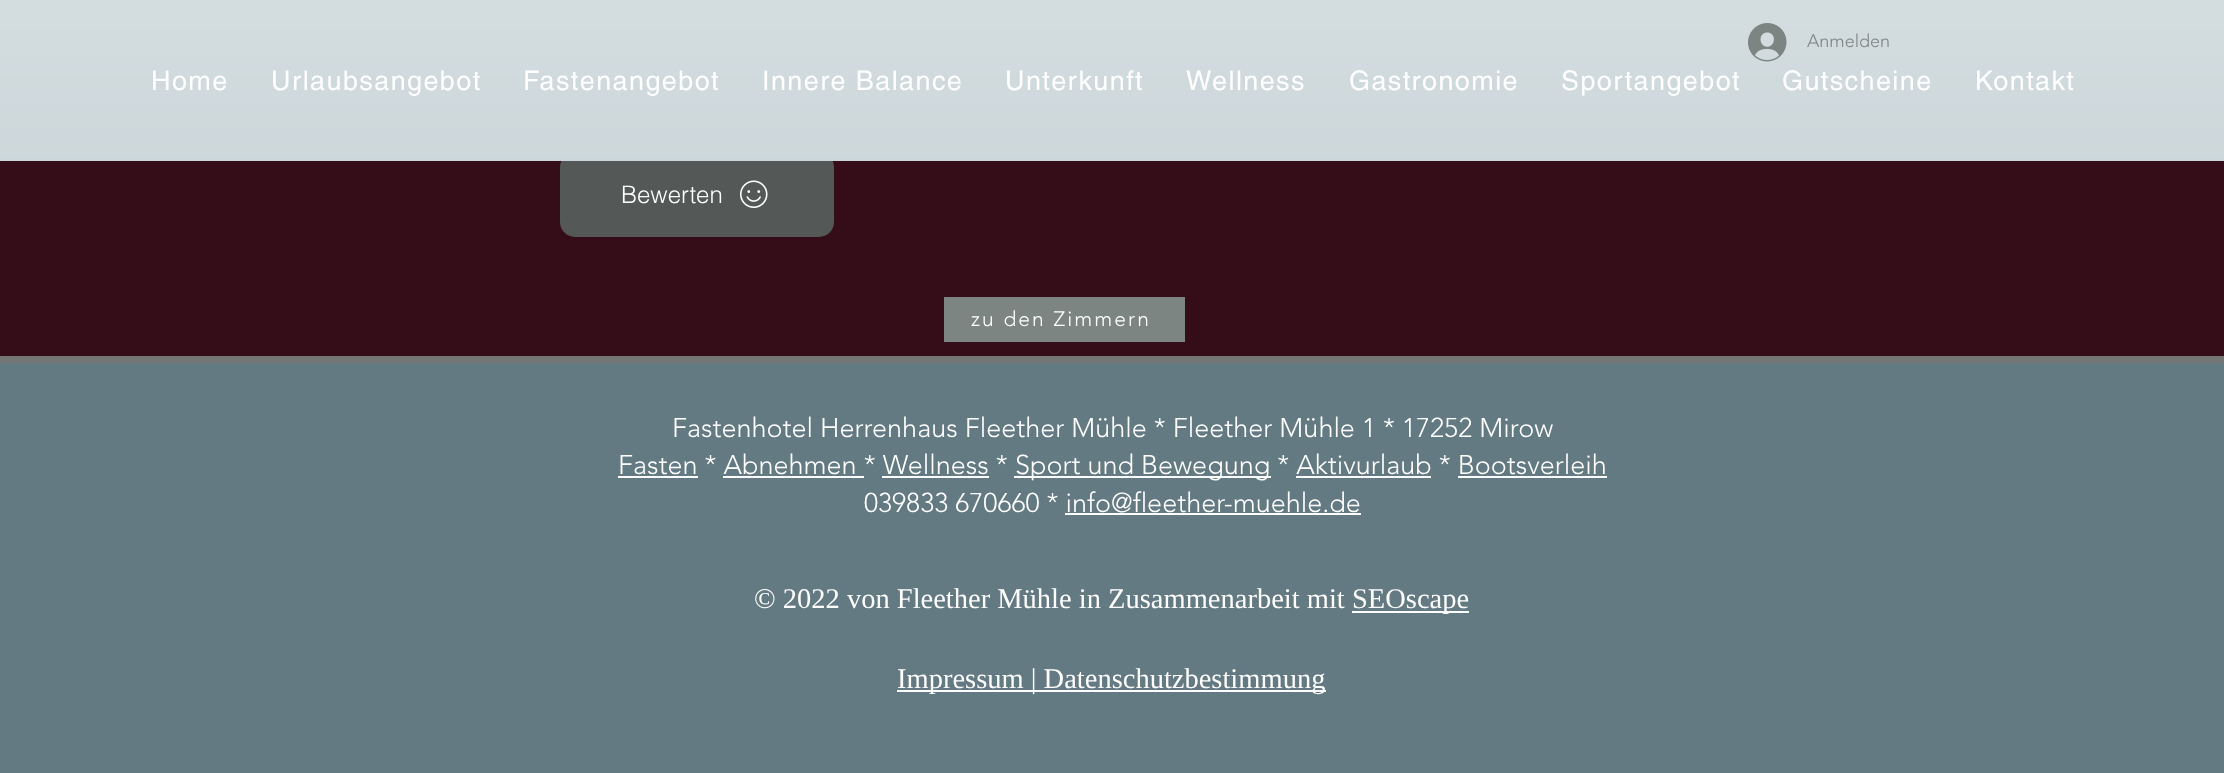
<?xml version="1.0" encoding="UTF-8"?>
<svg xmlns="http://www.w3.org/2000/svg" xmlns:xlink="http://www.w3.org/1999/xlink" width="2224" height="773">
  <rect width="100%" height="100%" fill="#350d18" />
  <rect x="560" y="152" width="274" height="85" rx="15" fill="#545857" />
  <rect width="2224" height="161" fill="#c5d1d5" />
  <image x="0" y="0" width="2224" height="161" xlink:href="image1.png" />
  <image x="1748" y="23" width="39" height="39" xlink:href="image2.png" />
  <image x="739" y="180" width="29" height="29" xlink:href="image3.png" />
  <rect x="944" y="297" width="241" height="45" fill="#7d8582" />
  <rect y="363" width="2224" height="410" fill="#647a82" />
  <rect y="356" width="2224" height="7" fill="#757575" />
  <rect x="618" y="476" width="80" height="2" fill="#ffffff" />
  <rect x="723" y="476" width="141" height="2" fill="#ffffff" />
  <rect x="882" y="476" width="107" height="2" fill="#ffffff" />
  <rect x="1014" y="476" width="257" height="2" fill="#ffffff" />
  <rect x="1296" y="476" width="135" height="2" fill="#ffffff" />
  <rect x="1458" y="476" width="149" height="2" fill="#ffffff" />
  <rect x="1065" y="513" width="296" height="2" fill="#ffffff" />
  <rect x="1352" y="611" width="117" height="2" fill="#ffffff" />
  <rect x="897" y="690" width="429" height="2" fill="#ffffff" />
  <text x="1807" y="47" style="font-family: 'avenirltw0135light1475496'; font-size: 18px; font-weight: 300; fill: #7d8582">Anmelden</text>
  <text x="151" y="90" style="font-family: helvetica; font-size: 27px; letter-spacing: 1.4px; fill: #ffffff">Home</text>
  <text x="271" y="90" style="font-family: helvetica; font-size: 27px; letter-spacing: 1.4px; fill: #ffffff">Urlaubsangebot</text>
  <text x="523" y="90" style="font-family: helvetica; font-size: 27px; letter-spacing: 1.4px; fill: #ffffff">Fastenangebot</text>
  <text x="762" y="90" style="font-family: helvetica; font-size: 27px; letter-spacing: 1.4px; fill: #ffffff">Innere Balance</text>
  <text x="1005" y="90" style="font-family: helvetica; font-size: 27px; letter-spacing: 1.4px; fill: #ffffff">Unterkunft</text>
  <text x="1186" y="90" style="font-family: helvetica; font-size: 27px; letter-spacing: 1.4px; fill: #ffffff">Wellness</text>
  <text x="1349" y="90" style="font-family: helvetica; font-size: 27px; letter-spacing: 1.4px; fill: #ffffff">Gastronomie</text>
  <text x="1561" y="90" style="font-family: helvetica; font-size: 27px; letter-spacing: 1.4px; fill: #ffffff">Sportangebot</text>
  <text x="1782" y="90" style="font-family: helvetica; font-size: 27px; letter-spacing: 1.4px; fill: #ffffff">Gutscheine</text>
  <text x="1975" y="90" style="font-family: helvetica; font-size: 27px; letter-spacing: 1.4px; fill: #ffffff">Kontakt</text>
  <text x="621" y="203" style="font-family: helvetica; font-size: 24px; font-weight: 300; fill: #ffffff">Bewerten</text>
  <text x="971" y="326" style="font-family: 'avenirltw0135light1475496'; font-size: 21px; font-weight: 300; letter-spacing: 2.1px; fill: #ffffff">zu den Zimmern</text>
  <text x="672" y="437" style="font-family: 'avenirltw0135light1475496'; font-size: 27px; font-weight: 300; fill: #ffffff">Fastenhotel Herrenhaus Fleether Mühle * Fleether Mühle 1 * 17252 Mirow</text>
  <text x="618" y="474" style="font-family: 'avenirltw0135light1475496'; font-size: 27px; font-weight: 300; fill: #ffffff">Fasten * Abnehmen * Wellness *</text>
  <text x="1015" y="474" style="font-family: 'avenirltw0135light1475496'; font-size: 27px; font-weight: 300; fill: #ffffff">Sport und Bewegung * Aktivurlaub * Bootsverleih</text>
  <text x="864" y="512" style="font-family: 'avenirltw0135light1475496'; font-size: 27px; font-weight: 300; fill: #ffffff">039833 670660 * info@fleether-muehle.de</text>
  <text x="754" y="608" style="font-family: Liberation Serif; font-size: 28.5px; fill: #ffffff">© 2022 von Fleether Mühle in Zusammenarbeit mit</text>
  <text x="1352" y="608" style="font-family: Liberation Serif; font-size: 28.5px; fill: #ffffff">SEOscape</text>
  <text x="897" y="688" style="font-family: Liberation Serif; font-size: 28.5px; fill: #ffffff">Impressum | Datenschutzbestimmung</text>
</svg>
